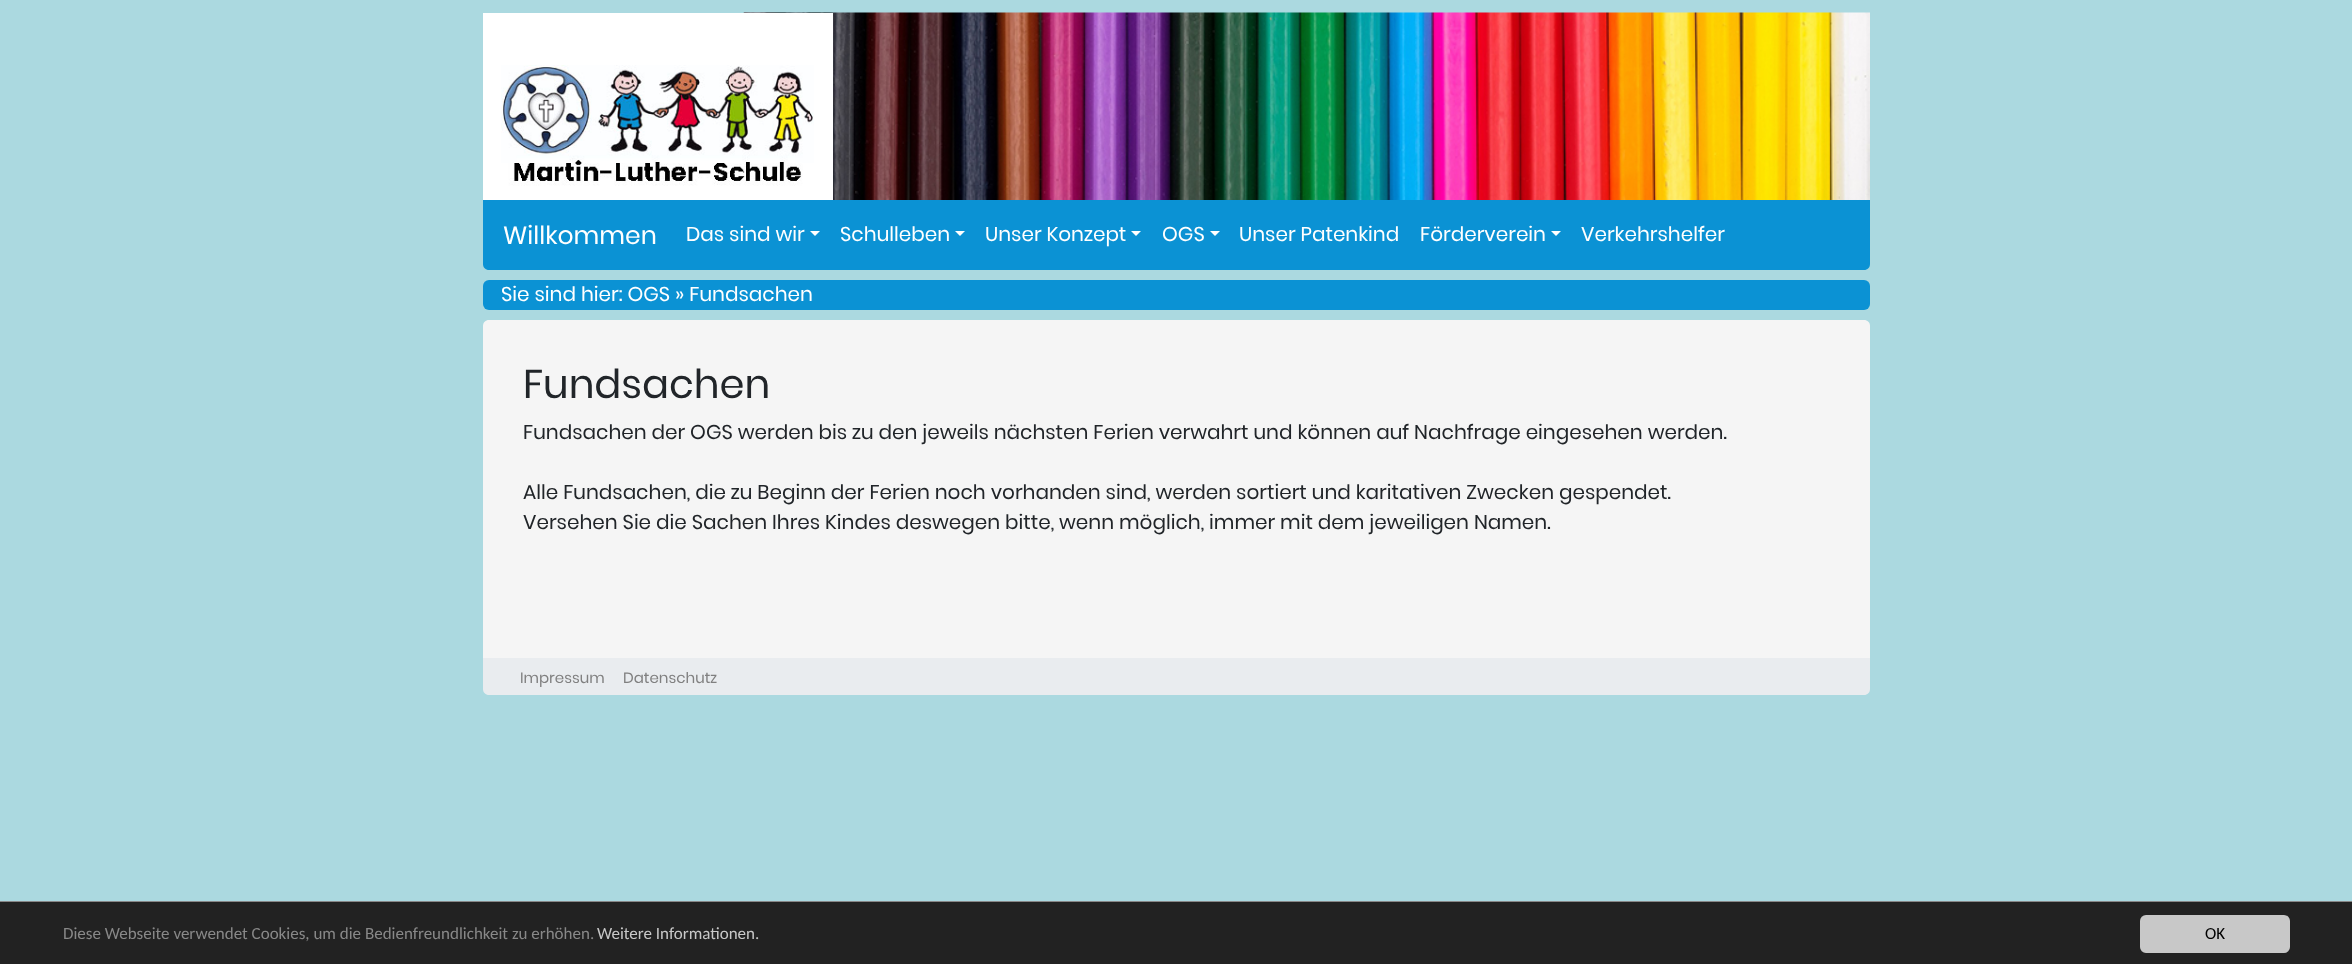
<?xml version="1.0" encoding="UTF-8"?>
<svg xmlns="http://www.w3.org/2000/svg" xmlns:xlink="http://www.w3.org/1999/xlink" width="2352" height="964">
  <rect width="100%" height="100%" fill="#abd9e0" />
  <image x="743" y="12" width="1127" height="188" xlink:href="image1.png" />
  <rect x="483" y="13" width="350" height="187" fill="#ffffff" />
  <image x="501" y="65" width="313" height="121" xlink:href="image2.png" />
  <path d="M 483 200 h 1387 v 64 c 0 3.5 -2.5 6 -6 6 h -1375 c -3.5 0 -6 -2.5 -6 -6 z" fill="#0b92d4" />
  <path d="M 810 231 h 10 l -5 5 z" fill="#ffffff" />
  <path d="M 955 231 h 10 l -5 5 z" fill="#ffffff" />
  <path d="M 1131 231 h 10 l -5 5 z" fill="#ffffff" />
  <path d="M 1210 231 h 10 l -5 5 z" fill="#ffffff" />
  <path d="M 1551 231 h 10 l -5 5 z" fill="#ffffff" />
  <rect x="483" y="280" width="1387" height="30" rx="6" fill="#0b92d4" />
  <path d="M 489 320 h 1375 c 3.5 0 6 2.5 6 6 v 332 h -1387 v -332 c 0 -3.5 2.5 -6 6 -6 z" fill="#f5f5f5" />
  <path d="M 483 658 h 1387 v 31 c 0 3.5 -2.5 6 -6 6 h -1375 c -3.5 0 -6 -2.5 -6 -6 z" fill="#e9ecef" />
  <rect y="902" width="2352" height="62" fill="#222222" />
  <rect y="901" width="2352" height="1" fill="#888888" />
  <rect x="2140" y="915" width="150" height="38" rx="6" fill="#c8c8c8" />
  <text x="503" y="244" style="font-family: Poppins; font-size: 25px; fill: #ffffff">Willkommen</text>
  <text x="686" y="241" style="font-family: Poppins; font-size: 20px; fill: #ffffff">Das sind wir</text>
  <text x="840" y="241" style="font-family: Poppins; font-size: 20px; fill: #ffffff">Schulleben</text>
  <text x="985" y="241" style="font-family: Poppins; font-size: 20px; fill: #ffffff">Unser Konzept</text>
  <text x="1162" y="241" style="font-family: Poppins; font-size: 20px; fill: #ffffff">OGS</text>
  <text x="1239" y="241" style="font-family: Poppins; font-size: 20px; fill: #ffffff">Unser Patenkind</text>
  <text x="1420" y="241" style="font-family: Poppins; font-size: 20px; fill: #ffffff">Förderverein</text>
  <text x="1581" y="241" style="font-family: Poppins; font-size: 20px; fill: #ffffff">Verkehrshelfer</text>
  <text x="501" y="301" style="font-family: Poppins; font-size: 20px; fill: #ffffff">Sie sind hier: OGS » Fundsachen</text>
  <text x="523" y="398" style="font-family: Poppins; font-size: 40px; fill: #212529">Fundsachen</text>
  <text x="523" y="439" style="font-family: Poppins; font-size: 20px; fill: #212529">Fundsachen der OGS werden bis zu den jeweils nächsten Ferien verwahrt und können auf Nachfrage eingesehen werden.</text>
  <text x="523" y="499" style="font-family: Poppins; font-size: 20px; fill: #212529">Alle Fundsachen, die zu Beginn der Ferien noch vorhanden sind, werden sortiert und karitativen Zwecken gespendet.</text>
  <text x="523" y="529" style="font-family: Poppins; font-size: 20px; fill: #212529">Versehen Sie die Sachen Ihres Kindes deswegen bitte, wenn möglich, immer mit dem jeweiligen Namen.</text>
  <text x="520" y="683" style="font-family: Poppins; font-size: 15px; fill: #808080">Impressum</text>
  <text x="623" y="683" style="font-family: Poppins; font-size: 15px; fill: #808080">Datenschutz</text>
  <text x="63" y="939" style="font-family: Carlito; font-size: 17px; fill: #888888">Diese Webseite verwendet Cookies, um die Bedienfreundlichkeit zu erhöhen.</text>
  <text x="597" y="939" style="font-family: Carlito; font-size: 17px; fill: #c8c8c8">Weitere Informationen.</text>
  <text x="2205" y="939" style="font-family: Carlito; font-size: 17px; fill: #000000">OK</text>
</svg>
